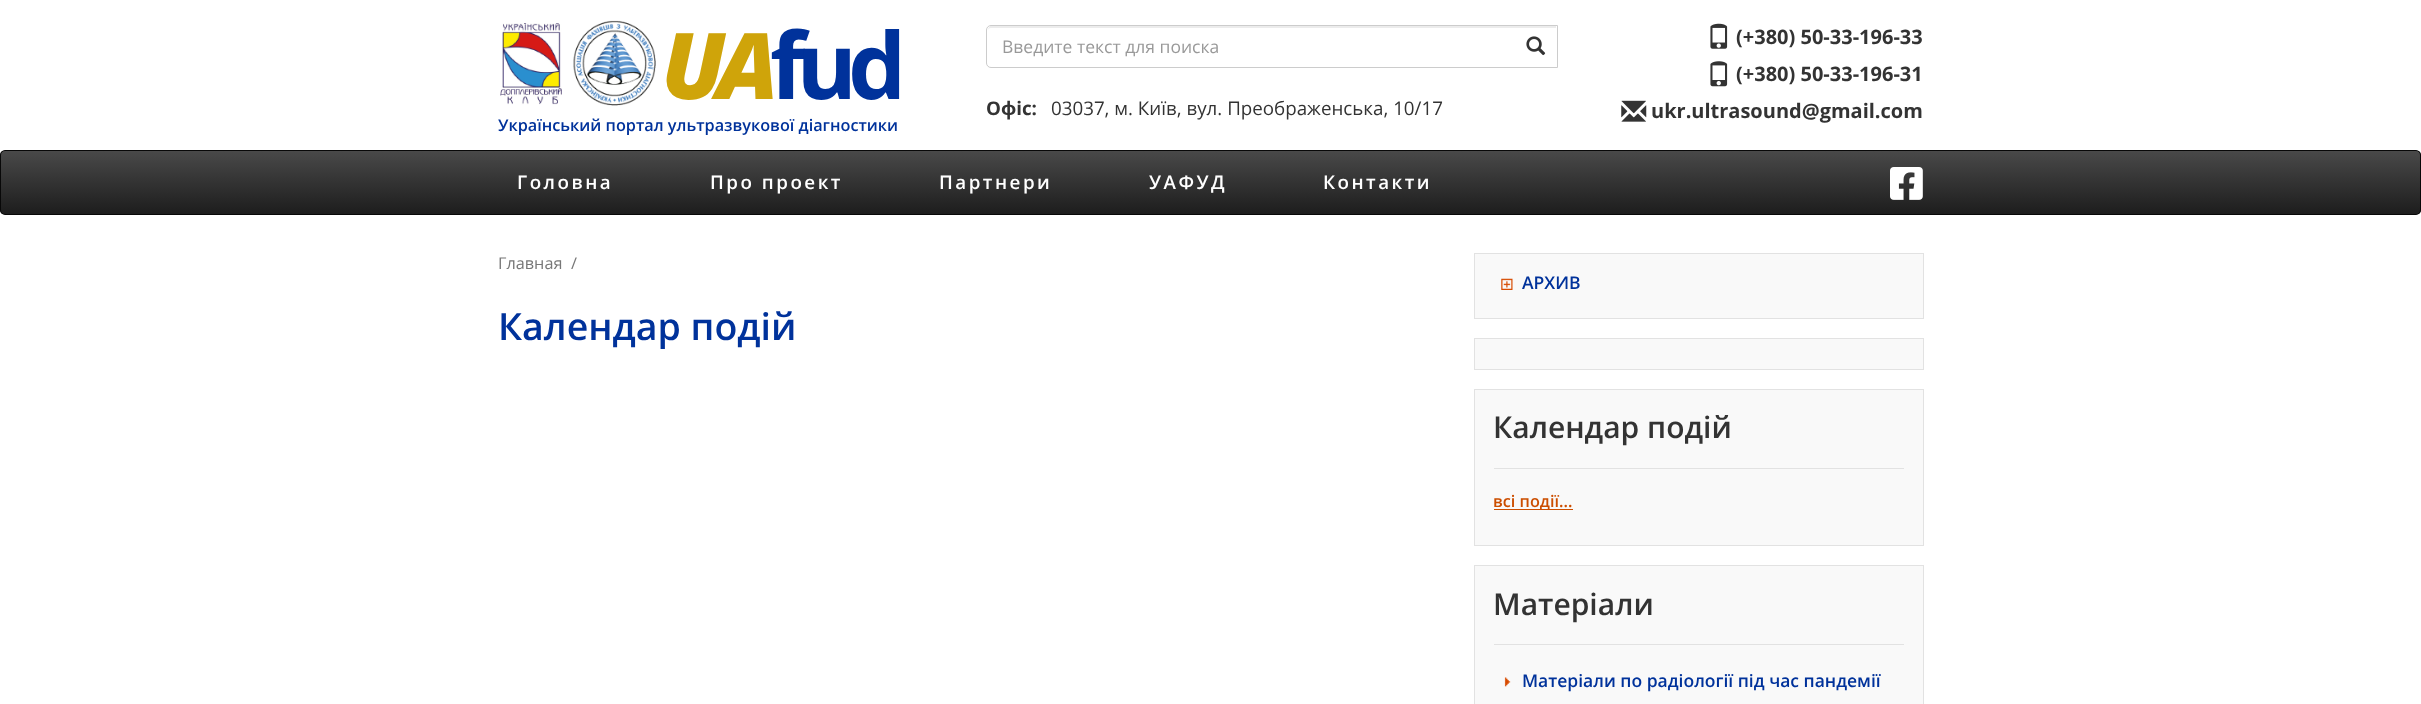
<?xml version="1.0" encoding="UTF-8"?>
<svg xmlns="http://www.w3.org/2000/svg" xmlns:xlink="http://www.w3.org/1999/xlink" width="2421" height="704">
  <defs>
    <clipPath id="clip1"><rect y="150" width="2421" height="65" rx="5" /></clipPath>
    <linearGradient id="g1" gradientUnits="userSpaceOnUse" x1="1211" y1="151" x2="1211" y2="214"><stop offset="0" stop-color="#494949" /><stop offset="1" stop-color="#1d1d1d" /></linearGradient>
  </defs>
  <rect width="100%" height="100%" fill="#ffffff" />
  <image x="500" y="20" width="156" height="86" xlink:href="image1.png" />
  <path d="M 991 28 h 565 v -2 h -564 c -3 0 -4 2 -4 5 c 0 -2 1 -3 3 -3 z" fill="#ececec" />
  <path d="M 991 25.5 h 566.5 v 42 h -566.5 c -2.5 0 -4.5 -2 -4.5 -4.5 v -33 c 0 -2.5 2 -4.5 4.5 -4.5 z" fill="none" stroke="#cccccc" />
  <image x="1526" y="36" width="20" height="20" xlink:href="image2.png" />
  <image x="1710" y="23" width="18" height="26" xlink:href="image3.png" />
  <image x="1710" y="61" width="18" height="26" xlink:href="image4.png" />
  <image x="1621" y="100" width="26" height="22" xlink:href="image5.png" />
  <g clip-path="url(#clip1)">
    <rect y="151" width="2421" height="63" fill="url(#g1)" />
  </g>
  <rect x="0.5" y="150.5" width="2420" height="64" rx="4.5" fill="none" stroke="#080808" />
  <image x="1890" y="167" width="33" height="33" xlink:href="image6.png" />
  <rect x="1474.5" y="253.5" width="449" height="65" fill="#f9f9f9" stroke="#e2e2e2" />
  <image x="1501" y="278" width="12" height="12" xlink:href="image7.png" />
  <rect x="1474.5" y="338.5" width="449" height="31" fill="#f9f9f9" stroke="#e2e2e2" />
  <rect x="1474.5" y="389.5" width="449" height="156" fill="#f9f9f9" stroke="#e2e2e2" />
  <rect x="1494" y="468" width="410" height="1" fill="#e2e2e2" />
  <rect x="1494" y="509" width="79" height="1" fill="#cc4e00" />
  <rect x="1474.5" y="565.5" width="449" height="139" fill="#f9f9f9" stroke="#e2e2e2" />
  <rect x="1494" y="644" width="410" height="1" fill="#e2e2e2" />
  <image x="1504" y="677" width="7" height="10" xlink:href="image8.png" />
  <text x="661" y="99" style="font-family: Open Sans; font-size: 92px; font-weight: 800; font-style: italic; letter-spacing: -9px; fill: #cfa40a">UA</text>
  <text x="770" y="99" style="font-family: Open Sans; font-size: 92px; font-weight: bold; letter-spacing: -9px; fill: #00329b">fud</text>
  <text x="498" y="131" style="font-family: Open Sans; font-size: 16.25px; font-weight: 600; fill: #00329b">Український портал ультразвукової діагностики</text>
  <text x="1002" y="53" style="font-family: Open Sans; font-size: 17.5px; fill: #999999">Введите текст для поиска</text>
  <text x="986" y="115" style="font-family: Open Sans; font-size: 18.75px; font-weight: bold; fill: #333333">Офіс:</text>
  <text x="1051" y="115" style="font-family: Open Sans; font-size: 18.75px; fill: #333333">03037, м. Київ, вул. Преображенська, 10/17</text>
  <text x="1736" y="44" style="font-family: Open Sans; font-size: 20px; font-weight: bold; fill: #333333">(+380) 50-33-196-33</text>
  <text x="1736" y="81" style="font-family: Open Sans; font-size: 20px; font-weight: bold; fill: #333333">(+380) 50-33-196-31</text>
  <text x="1651" y="118" style="font-family: Open Sans; font-size: 20px; font-weight: bold; fill: #333333">ukr.ultrasound@gmail.com</text>
  <text x="517" y="189" style="font-family: Open Sans; font-size: 18.75px; font-weight: 600; letter-spacing: 2.5px; fill: #ffffff">Головна</text>
  <text x="710" y="189" style="font-family: Open Sans; font-size: 18.75px; font-weight: 600; letter-spacing: 2.5px; fill: #ffffff">Про проект</text>
  <text x="939" y="189" style="font-family: Open Sans; font-size: 18.75px; font-weight: 600; letter-spacing: 2.5px; fill: #ffffff">Партнери</text>
  <text x="1149" y="189" style="font-family: Open Sans; font-size: 18.75px; font-weight: 600; letter-spacing: 2.5px; fill: #ffffff">УАФУД</text>
  <text x="1323" y="189" style="font-family: Open Sans; font-size: 18.75px; font-weight: 600; letter-spacing: 2.5px; fill: #ffffff">Контакти</text>
  <text x="498" y="269" style="font-family: Open Sans; font-size: 16.25px; fill: #777777">Главная</text>
  <text x="571" y="269" style="font-family: Open Sans; font-size: 16.25px; fill: #777777">/</text>
  <text x="498" y="340" style="font-family: Open Sans; font-size: 37.5px; font-weight: 600; fill: #00329b">Календар подій</text>
  <text x="1522" y="289" style="font-family: Open Sans; font-size: 17.5px; font-weight: 600; fill: #00329b">АРХИВ</text>
  <text x="1493" y="438" style="font-family: Open Sans; font-size: 30px; font-weight: 600; fill: #333333">Календар подій</text>
  <text x="1493" y="507" style="font-family: Open Sans; font-size: 16.25px; font-weight: 600; fill: #cc4e00">всі події...</text>
  <text x="1493" y="615" style="font-family: Open Sans; font-size: 30px; font-weight: 600; fill: #333333">Матеріали</text>
  <text x="1522" y="687" style="font-family: Open Sans; font-size: 17.5px; font-weight: 600; fill: #00329b">Матеріали по радіології під час пандемії</text>
</svg>
